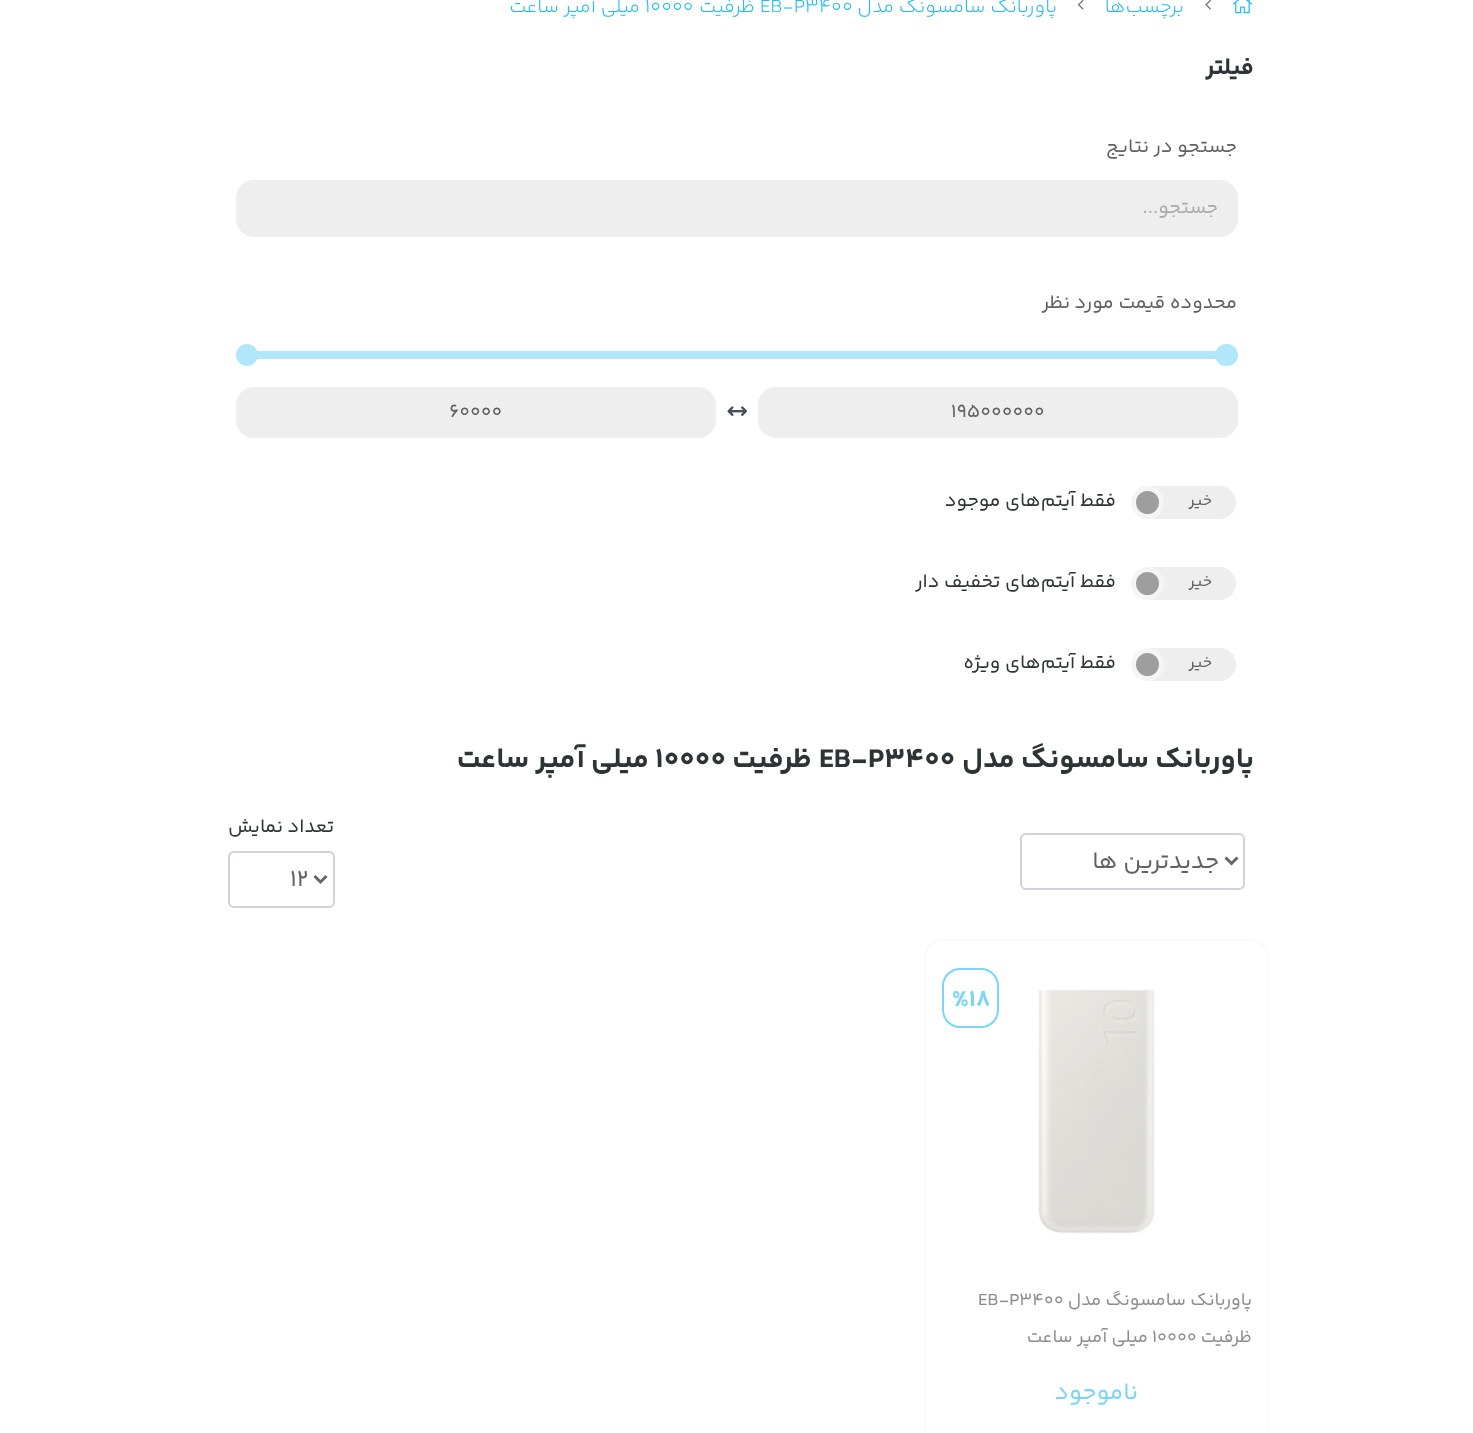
<?xml version="1.0" encoding="UTF-8"?>
<svg xmlns="http://www.w3.org/2000/svg" xmlns:xlink="http://www.w3.org/1999/xlink" width="1473" height="1433">
  <rect width="100%" height="100%" fill="#ffffff" />
  <image x="1232" y="0" width="21" height="14" xlink:href="image1.png" />
  <image x="1205" y="0" width="6" height="10" xlink:href="image2.png" />
  <image x="1077" y="0" width="7" height="10" xlink:href="image3.png" />
  <rect x="237" y="181" width="1000" height="55" rx="17" fill="#eeeeee" stroke="#eeeeee" stroke-width="2" />
  <rect x="251" y="351" width="965" height="8" fill="#b2e7fb" />
  <rect x="1215" y="344" width="23" height="22" rx="11" fill="#b2e7fb" />
  <circle cx="247" cy="355" r="11" fill="#b2e7fb" />
  <rect x="759" y="388" width="478" height="49" rx="17" fill="#eeeeee" stroke="#eeeeee" stroke-width="2" />
  <image x="727" y="406" width="20" height="10" xlink:href="image4.png" />
  <rect x="237" y="388" width="478" height="49" rx="17" fill="#eeeeee" stroke="#eeeeee" stroke-width="2" />
  <path d="M 1148 486 h 71.5 c 9 0 16.5 7.5 16.5 16.5 c 0 9 -7.5 16.5 -16.5 16.5 h -71.5 z" fill="#eeeeee" />
  <circle cx="1147.5" cy="502.5" r="14" fill="#9e9e9e" stroke="#f5f5f6" stroke-width="5" />
  <path d="M 1148 567 h 71.5 c 9 0 16.5 7.5 16.5 16.5 c 0 9 -7.5 16.5 -16.5 16.5 h -71.5 z" fill="#eeeeee" />
  <circle cx="1147.5" cy="583.5" r="14" fill="#9e9e9e" stroke="#f5f5f6" stroke-width="5" />
  <path d="M 1148 648 h 71.5 c 9 0 16.5 7.5 16.5 16.5 c 0 9 -7.5 16.5 -16.5 16.5 h -71.5 z" fill="#eeeeee" />
  <circle cx="1147.5" cy="664.5" r="14" fill="#9e9e9e" stroke="#f5f5f6" stroke-width="5" />
  <rect x="1021" y="834" width="223" height="55" rx="5" fill="none" stroke="#ced4da" stroke-width="2" />
  <path d="M 1225.5 857.5 l 6 6 l 6 -6" fill="none" stroke="#666666" stroke-width="3" />
  <rect x="229" y="852" width="105" height="55" rx="5" fill="none" stroke="#ced4da" stroke-width="2" />
  <path d="M 314.5 876 l 6 6 l 6 -6" fill="none" stroke="#666666" stroke-width="3" />
  <rect x="925" y="940" width="343" height="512" rx="17" fill="none" stroke="#fafafa" stroke-width="2" />
  <image x="1038" y="989" width="119" height="245" xlink:href="image5.png" />
  <rect x="943" y="969" width="55" height="58" rx="17" fill="none" stroke="#7ad5f8" stroke-width="2" />
  <text x="1184" y="12" style="font-family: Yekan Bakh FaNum; font-size: 19.5px; font-weight: 300; direction: rtl; fill: #21b9f3">برچسب‌ها</text>
  <text x="1057" y="12" style="font-family: Yekan Bakh FaNum; font-size: 19.5px; font-weight: 300; direction: rtl; fill: #21b9f3">پاوربانک سامسونگ مدل</text>
  <text x="760" y="12" style="font-family: Yekan Bakh FaNum; font-size: 19.5px; font-weight: 300; fill: #21b9f3">EB-P3400</text>
  <text x="755" y="12" style="font-family: Yekan Bakh FaNum; font-size: 19.5px; font-weight: 300; direction: rtl; fill: #21b9f3">ظرفیت</text>
  <text x="645" y="12" style="font-family: Yekan Bakh FaNum; font-size: 19.5px; font-weight: 300; fill: #21b9f3">10000</text>
  <text x="640" y="12" style="font-family: Yekan Bakh FaNum; font-size: 19.5px; font-weight: 300; direction: rtl; fill: #21b9f3">میلی آمپر ساعت</text>
  <text x="1254" y="74" style="font-family: Yekan Bakh FaNum; font-size: 24px; font-weight: bold; direction: rtl; fill: #2d3436">فیلتر</text>
  <text x="1237" y="152" style="font-family: Yekan Bakh FaNum; font-size: 19.5px; direction: rtl; fill: #616161">جستجو در نتایج</text>
  <text x="1218" y="213" style="font-family: Yekan Bakh FaNum; font-size: 19.5px; direction: rtl; fill: #aaaaaa">جستجو...</text>
  <text x="1237" y="308" style="font-family: Yekan Bakh FaNum; font-size: 19.5px; direction: rtl; fill: #616161">محدوده قیمت مورد نظر</text>
  <text x="951" y="417" style="font-family: Yekan Bakh FaNum; font-size: 19.5px; fill: #616161">195000000</text>
  <text x="449" y="417" style="font-family: Yekan Bakh FaNum; font-size: 19.5px; fill: #616161">60000</text>
  <text x="1212" y="505" style="font-family: Yekan Bakh FaNum; font-size: 16px; direction: rtl; fill: #616161">خیر</text>
  <text x="1116" y="506" style="font-family: Yekan Bakh FaNum; font-size: 19.5px; direction: rtl; fill: #2d3436">فقط آیتم‌های موجود</text>
  <text x="1212" y="586" style="font-family: Yekan Bakh FaNum; font-size: 16px; direction: rtl; fill: #616161">خیر</text>
  <text x="1116" y="587" style="font-family: Yekan Bakh FaNum; font-size: 19.5px; direction: rtl; fill: #2d3436">فقط آیتم‌های تخفیف دار</text>
  <text x="1212" y="667" style="font-family: Yekan Bakh FaNum; font-size: 16px; direction: rtl; fill: #616161">خیر</text>
  <text x="1116" y="668" style="font-family: Yekan Bakh FaNum; font-size: 19.5px; direction: rtl; fill: #2d3436">فقط آیتم‌های ویژه</text>
  <text x="1254" y="767" style="font-family: Yekan Bakh FaNum; font-size: 28.75px; font-weight: bold; direction: rtl; fill: #2d3436">پاوربانک سامسونگ مدل</text>
  <text x="819" y="767" style="font-family: Yekan Bakh FaNum; font-size: 28.75px; font-weight: bold; fill: #2d3436">EB-P3400</text>
  <text x="812" y="767" style="font-family: Yekan Bakh FaNum; font-size: 28.75px; font-weight: bold; direction: rtl; fill: #2d3436">ظرفیت</text>
  <text x="655" y="767" style="font-family: Yekan Bakh FaNum; font-size: 28.75px; font-weight: bold; fill: #2d3436">10000</text>
  <text x="649" y="767" style="font-family: Yekan Bakh FaNum; font-size: 28.75px; font-weight: bold; direction: rtl; fill: #2d3436">میلی آمپر ساعت</text>
  <text x="1219" y="868" style="font-family: Yekan Bakh FaNum; font-size: 24px; direction: rtl; fill: #616161">جدیدترین ها</text>
  <text x="334" y="832" style="font-family: Yekan Bakh FaNum; font-size: 19.5px; direction: rtl; fill: #2d3436">تعداد نمایش</text>
  <text x="290" y="886" style="font-family: Yekan Bakh FaNum; font-size: 24px; fill: #616161">12</text>
  <text x="952" y="1006" style="font-family: Yekan Bakh FaNum; font-size: 24px; font-weight: bold; fill: #7ad5f8">%18</text>
  <text x="1252" y="1305" style="font-family: Yekan Bakh FaNum; font-size: 18px; direction: rtl; fill: #8e8e8e">پاوربانک سامسونگ مدل</text>
  <text x="978" y="1305" style="font-family: Yekan Bakh FaNum; font-size: 18px; fill: #8e8e8e">EB-P3400</text>
  <text x="1252" y="1342" style="font-family: Yekan Bakh FaNum; font-size: 18px; direction: rtl; fill: #8e8e8e">ظرفیت</text>
  <text x="1152" y="1342" style="font-family: Yekan Bakh FaNum; font-size: 18px; fill: #8e8e8e">10000</text>
  <text x="1148" y="1342" style="font-family: Yekan Bakh FaNum; font-size: 18px; direction: rtl; fill: #8e8e8e">میلی آمپر ساعت</text>
  <text x="1138" y="1399" style="font-family: Yekan Bakh FaNum; font-size: 24px; direction: rtl; fill: #7ad5f8">ناموجود</text>
</svg>
